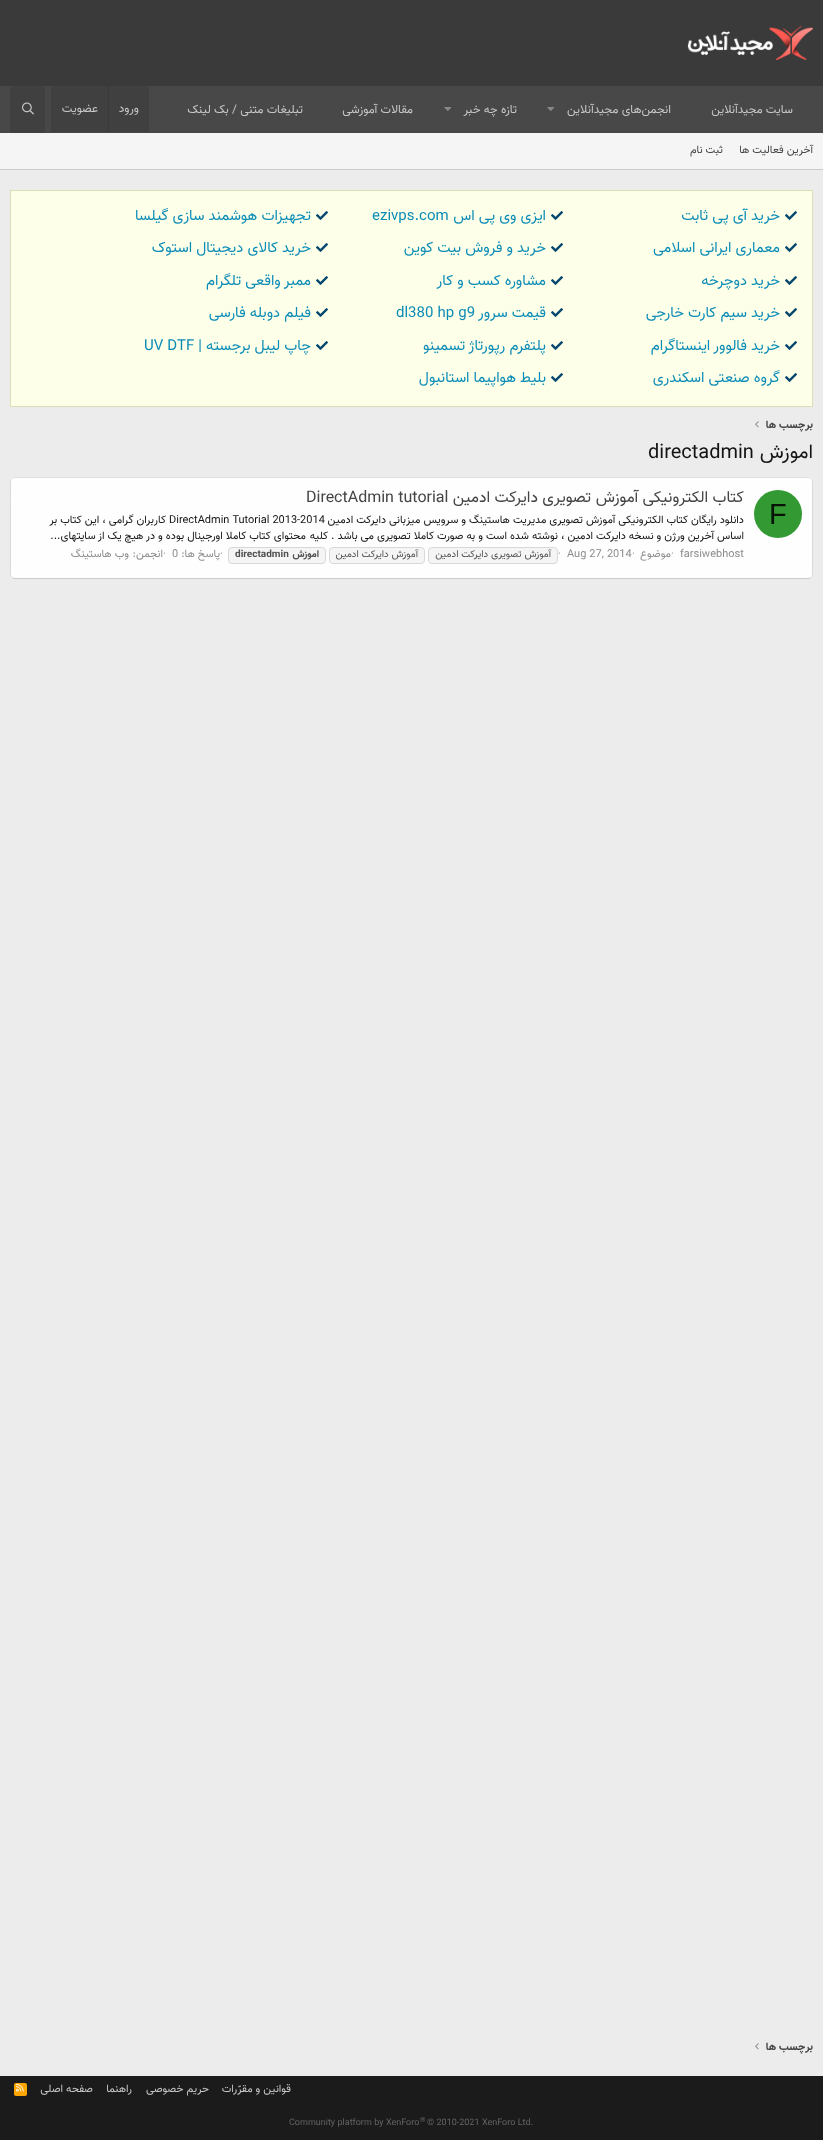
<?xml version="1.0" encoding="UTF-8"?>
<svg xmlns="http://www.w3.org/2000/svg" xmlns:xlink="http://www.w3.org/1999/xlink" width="823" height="2140">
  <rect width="100%" height="100%" fill="#ececec" />
  <rect width="823" height="86" fill="#3a3a3a" />
  <image x="687" y="26" width="126" height="34" xlink:href="image1.png" />
  <rect y="86" width="823" height="47" fill="#484848" />
  <image x="547" y="107" width="8" height="4" xlink:href="image2.png" />
  <image x="444" y="107" width="8" height="4" xlink:href="image2.png" />
  <path d="M 55 86 h 90 c 2 0 4 2 4 4 v 42 h -98 v -42 c 0 -2 2 -4 4 -4 z" fill="#404040" />
  <rect x="108" y="86" width="1" height="46" fill="#393939" />
  <path d="M 14 86 h 27 c 2 0 4 2 4 4 v 43 h -35 v -43 c 0 -2 2 -4 4 -4 z" fill="#404040" />
  <image x="22" y="102" width="12" height="13" xlink:href="image3.png" />
  <rect y="133" width="823" height="36" fill="#f5f5f5" />
  <rect y="169" width="823" height="1" fill="#cbcbcb" />
  <rect x="10.5" y="190.5" width="802" height="216" fill="#feffe8" stroke="#dcdeb5" />
  <image x="785" y="211" width="12" height="9" xlink:href="image4.png" />
  <image x="551" y="211" width="12" height="9" xlink:href="image4.png" />
  <image x="316" y="211" width="12" height="9" xlink:href="image4.png" />
  <image x="785" y="243" width="12" height="9" xlink:href="image4.png" />
  <image x="551" y="243" width="12" height="9" xlink:href="image4.png" />
  <image x="316" y="243" width="12" height="9" xlink:href="image4.png" />
  <image x="785" y="276" width="12" height="9" xlink:href="image4.png" />
  <image x="551" y="276" width="12" height="9" xlink:href="image4.png" />
  <image x="316" y="276" width="12" height="9" xlink:href="image4.png" />
  <image x="785" y="308" width="12" height="9" xlink:href="image4.png" />
  <image x="551" y="308" width="12" height="9" xlink:href="image4.png" />
  <image x="316" y="308" width="12" height="9" xlink:href="image4.png" />
  <image x="785" y="341" width="12" height="9" xlink:href="image4.png" />
  <image x="551" y="341" width="12" height="9" xlink:href="image4.png" />
  <image x="316" y="341" width="12" height="9" xlink:href="image4.png" />
  <image x="785" y="373" width="12" height="9" xlink:href="image4.png" />
  <image x="551" y="373" width="12" height="9" xlink:href="image4.png" />
  <image x="755" y="421" width="4" height="7" xlink:href="image5.png" />
  <rect x="10" y="477" width="803" height="102" rx="4" fill="#fefefe" />
  <path d="M 11.5 478.5 l 2.5 -1 h 795 l 2.5 1" fill="none" stroke="#dfdfdf" />
  <path d="M 811.5 478.5 l 1 2.5 v 94.5 l -1 2" fill="none" stroke="#d8d8d8" />
  <path d="M 811.5 577.5 l -2.5 1 h -795 l -2.5 -1" fill="none" stroke="#cbcbcb" />
  <path d="M 11.5 577.5 l -1 -2 v -79 v -15.5 l 1 -2.5" fill="none" stroke="#d8d8d8" />
  <circle cx="778" cy="514" r="24" fill="#339933" />
  <rect x="428.5" y="547.5" width="129" height="16" rx="3.5" fill="#f5f5f5" stroke="#d8d8d8" />
  <rect x="329.5" y="547.5" width="95" height="16" rx="3.5" fill="#f5f5f5" stroke="#d8d8d8" />
  <rect x="228.5" y="547.5" width="97" height="16" rx="3.5" fill="#f5f5f5" stroke="#d8d8d8" />
  <image x="755" y="2043" width="4" height="7" xlink:href="image5.png" />
  <rect y="2076" width="823" height="64" fill="#1b1b1b" />
  <rect x="14" y="2083" width="13" height="13" rx="2" fill="#ffa500" />
  <image x="16" y="2083" width="8" height="9" xlink:href="image6.png" />
  <text x="793" y="113" style="font-family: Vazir; font-size: 12px; direction: rtl; fill: #c8c8c8">سایت مجیدآنلاین</text>
  <text x="671" y="113" style="font-family: Vazir; font-size: 12px; direction: rtl; fill: #c8c8c8">انجمن‌های مجیدآنلاین</text>
  <text x="517" y="113" style="font-family: Vazir; font-size: 12px; direction: rtl; fill: #c8c8c8">تازه چه خبر</text>
  <text x="413" y="113" style="font-family: Vazir; font-size: 12px; direction: rtl; fill: #c8c8c8">مقالات آموزشی</text>
  <text x="303" y="113" style="font-family: Vazir; font-size: 12px; direction: rtl; fill: #c8c8c8">تبلیغات متنی / بک لینک</text>
  <text x="139" y="112" style="font-family: Vazir; font-size: 12px; direction: rtl; fill: #c8c8c8">ورود</text>
  <text x="98" y="112" style="font-family: Vazir; font-size: 12px; direction: rtl; fill: #c8c8c8">عضویت</text>
  <text x="813" y="153" style="font-family: Vazir; font-size: 11px; direction: rtl; fill: #444444">آخرین فعالیت ها</text>
  <text x="723" y="153" style="font-family: Vazir; font-size: 11px; direction: rtl; fill: #444444">ثبت نام</text>
  <text x="780" y="220" style="font-family: Vazir; font-size: 15px; direction: rtl; fill: #0b8cb7">خرید آی پی ثابت</text>
  <text x="546" y="220" style="font-family: Vazir; font-size: 15px; direction: rtl; fill: #0b8cb7">ایزی وی پی اس</text>
  <text x="372" y="220" style="font-family: Vazir; font-size: 15px; fill: #0b8cb7">ezivps.com</text>
  <text x="311" y="220" style="font-family: Vazir; font-size: 15px; direction: rtl; fill: #0b8cb7">تجهیزات هوشمند سازی گیلسا</text>
  <text x="780" y="252" style="font-family: Vazir; font-size: 15px; direction: rtl; fill: #0b8cb7">معماری ایرانی اسلامی</text>
  <text x="546" y="252" style="font-family: Vazir; font-size: 15px; direction: rtl; fill: #0b8cb7">خرید و فروش بیت کوین</text>
  <text x="311" y="252" style="font-family: Vazir; font-size: 15px; direction: rtl; fill: #0b8cb7">خرید کالای دیجیتال استوک</text>
  <text x="780" y="285" style="font-family: Vazir; font-size: 15px; direction: rtl; fill: #0b8cb7">خرید دوچرخه</text>
  <text x="546" y="285" style="font-family: Vazir; font-size: 15px; direction: rtl; fill: #0b8cb7">مشاوره کسب و کار</text>
  <text x="311" y="285" style="font-family: Vazir; font-size: 15px; direction: rtl; fill: #0b8cb7">ممبر واقعی تلگرام</text>
  <text x="780" y="317" style="font-family: Vazir; font-size: 15px; direction: rtl; fill: #0b8cb7">خرید سیم کارت خارجی</text>
  <text x="546" y="317" style="font-family: Vazir; font-size: 15px; direction: rtl; fill: #0b8cb7">قیمت سرور</text>
  <text x="396" y="317" style="font-family: Vazir; font-size: 15px; fill: #0b8cb7">dl380 hp g9</text>
  <text x="311" y="317" style="font-family: Vazir; font-size: 15px; direction: rtl; fill: #0b8cb7">فیلم دوبله فارسی</text>
  <text x="780" y="350" style="font-family: Vazir; font-size: 15px; direction: rtl; fill: #0b8cb7">خرید فالوور اینستاگرام</text>
  <text x="546" y="350" style="font-family: Vazir; font-size: 15px; direction: rtl; fill: #0b8cb7">پلتفرم رپورتاژ تسمینو</text>
  <text x="311" y="350" style="font-family: Vazir; font-size: 15px; direction: rtl; fill: #0b8cb7">چاپ لیبل برجسته |</text>
  <text x="144" y="350" style="font-family: Vazir; font-size: 15px; fill: #0b8cb7">UV DTF</text>
  <text x="780" y="382" style="font-family: Vazir; font-size: 15px; direction: rtl; fill: #0b8cb7">گروه صنعتی اسکندری</text>
  <text x="546" y="382" style="font-family: Vazir; font-size: 15px; direction: rtl; fill: #0b8cb7">بلیط هواپیما استانبول</text>
  <text x="813" y="428" style="font-family: Vazir; font-size: 11px; font-weight: bold; direction: rtl; fill: #444444">برچسب ها</text>
  <text x="813" y="458" style="font-family: Vazir; font-size: 20px; direction: rtl; fill: #141414">اموزش</text>
  <text x="648" y="458" style="font-family: Vazir; font-size: 20px; fill: #141414">directadmin</text>
  <text x="769" y="524" style="font-family: Liberation Sans; font-size: 29px; fill: #061306">F</text>
  <text x="744" y="502" style="font-family: Vazir; font-size: 16px; direction: rtl; fill: #444444">کتاب الکترونیکی آموزش تصویری دایرکت ادمین</text>
  <text x="306" y="502" style="font-family: Vazir; font-size: 16px; fill: #444444">DirectAdmin tutorial</text>
  <text x="744" y="523" style="font-family: Vazir; font-size: 11px; direction: rtl; fill: #141414">دانلود رایگان کتاب الکترونیکی آموزش تصویری مدیریت هاستینگ و سرویس میزبانی دایرکت ادمین</text>
  <text x="169" y="523" style="font-family: Vazir; font-size: 11px; fill: #141414">DirectAdmin Tutorial 2013-2014</text>
  <text x="166" y="523" style="font-family: Vazir; font-size: 11px; direction: rtl; fill: #141414">کاربران گرامی ، این کتاب بر</text>
  <text x="744" y="539" style="font-family: Vazir; font-size: 11px; direction: rtl; fill: #141414">اساس آخرین ورژن و نسخه</text>
  <text x="626" y="539" style="font-family: Vazir; font-size: 11px; direction: rtl; fill: #141414">دایرکت ادمین ، نوشته شده است و به صورت کاملا تصویری می باشد . کلیه</text>
  <text x="306" y="539" style="font-family: Vazir; font-size: 11px; direction: rtl; fill: #141414">محتوای کتاب کاملا اورجینال بوده و در هیچ یک از سایتهای...</text>
  <text x="680" y="557" style="font-family: Vazir; font-size: 11px; fill: #8c8c8c">farsiwebhost</text>
  <text x="671" y="557" style="font-family: Vazir; font-size: 11px; fill: #8c8c8c">·</text>
  <text x="671" y="557" style="font-family: Vazir; font-size: 11px; direction: rtl; fill: #8c8c8c">موضوع</text>
  <text x="632" y="557" style="font-family: Vazir; font-size: 11px; fill: #8c8c8c">·</text>
  <text x="567" y="557" style="font-family: Vazir; font-size: 11px; fill: #8c8c8c">Aug 27, 2014</text>
  <text x="558" y="557" style="font-family: Vazir; font-size: 11px; fill: #8c8c8c">·</text>
  <text x="551" y="557" style="font-family: Vazir; font-size: 10px; direction: rtl; fill: #505050">آموزش تصویری دایرکت ادمین</text>
  <text x="418" y="557" style="font-family: Vazir; font-size: 10px; direction: rtl; fill: #505050">آموزش دایرکت ادمین</text>
  <text x="319" y="557" style="font-family: Vazir; font-size: 10px; font-weight: bold; direction: rtl; fill: #505050">اموزش</text>
  <text x="235" y="557" style="font-family: Vazir; font-size: 10px; font-weight: bold; fill: #505050">directadmin</text>
  <text x="220" y="557" style="font-family: Vazir; font-size: 11px; fill: #8c8c8c">·</text>
  <text x="220" y="557" style="font-family: Vazir; font-size: 11px; direction: rtl; fill: #8c8c8c">پاسخ ها:</text>
  <text x="172" y="557" style="font-family: Vazir; font-size: 11px; fill: #8c8c8c">0</text>
  <text x="163" y="557" style="font-family: Vazir; font-size: 11px; fill: #8c8c8c">·</text>
  <text x="163" y="557" style="font-family: Vazir; font-size: 11px; direction: rtl; fill: #8c8c8c">انجمن:</text>
  <text x="129" y="557" style="font-family: Vazir; font-size: 11px; direction: rtl; fill: #8c8c8c">وب هاستینگ</text>
  <text x="813" y="2050" style="font-family: Vazir; font-size: 11px; font-weight: bold; direction: rtl; fill: #444444">برچسب ها</text>
  <text x="291" y="2092" style="font-family: Vazir; font-size: 11px; direction: rtl; fill: #c8c8c8">قوانین و مقرّرات</text>
  <text x="209" y="2092" style="font-family: Vazir; font-size: 11px; direction: rtl; fill: #c8c8c8">حریم خصوصی</text>
  <text x="132" y="2092" style="font-family: Vazir; font-size: 11px; direction: rtl; fill: #c8c8c8">راهنما</text>
  <text x="93" y="2092" style="font-family: Vazir; font-size: 11px; direction: rtl; fill: #c8c8c8">صفحه اصلی</text>
  <text x="427" y="2125" style="font-family: Vazir; font-size: 9px; fill: #656565">© 2010-2021 XenForo Ltd.</text>
  <text x="289" y="2125" style="font-family: Vazir; font-size: 9px; fill: #656565">Community platform by XenForo</text>
  <text x="420" y="2122" style="font-family: Vazir; font-size: 7px; fill: #656565">®</text>
</svg>
